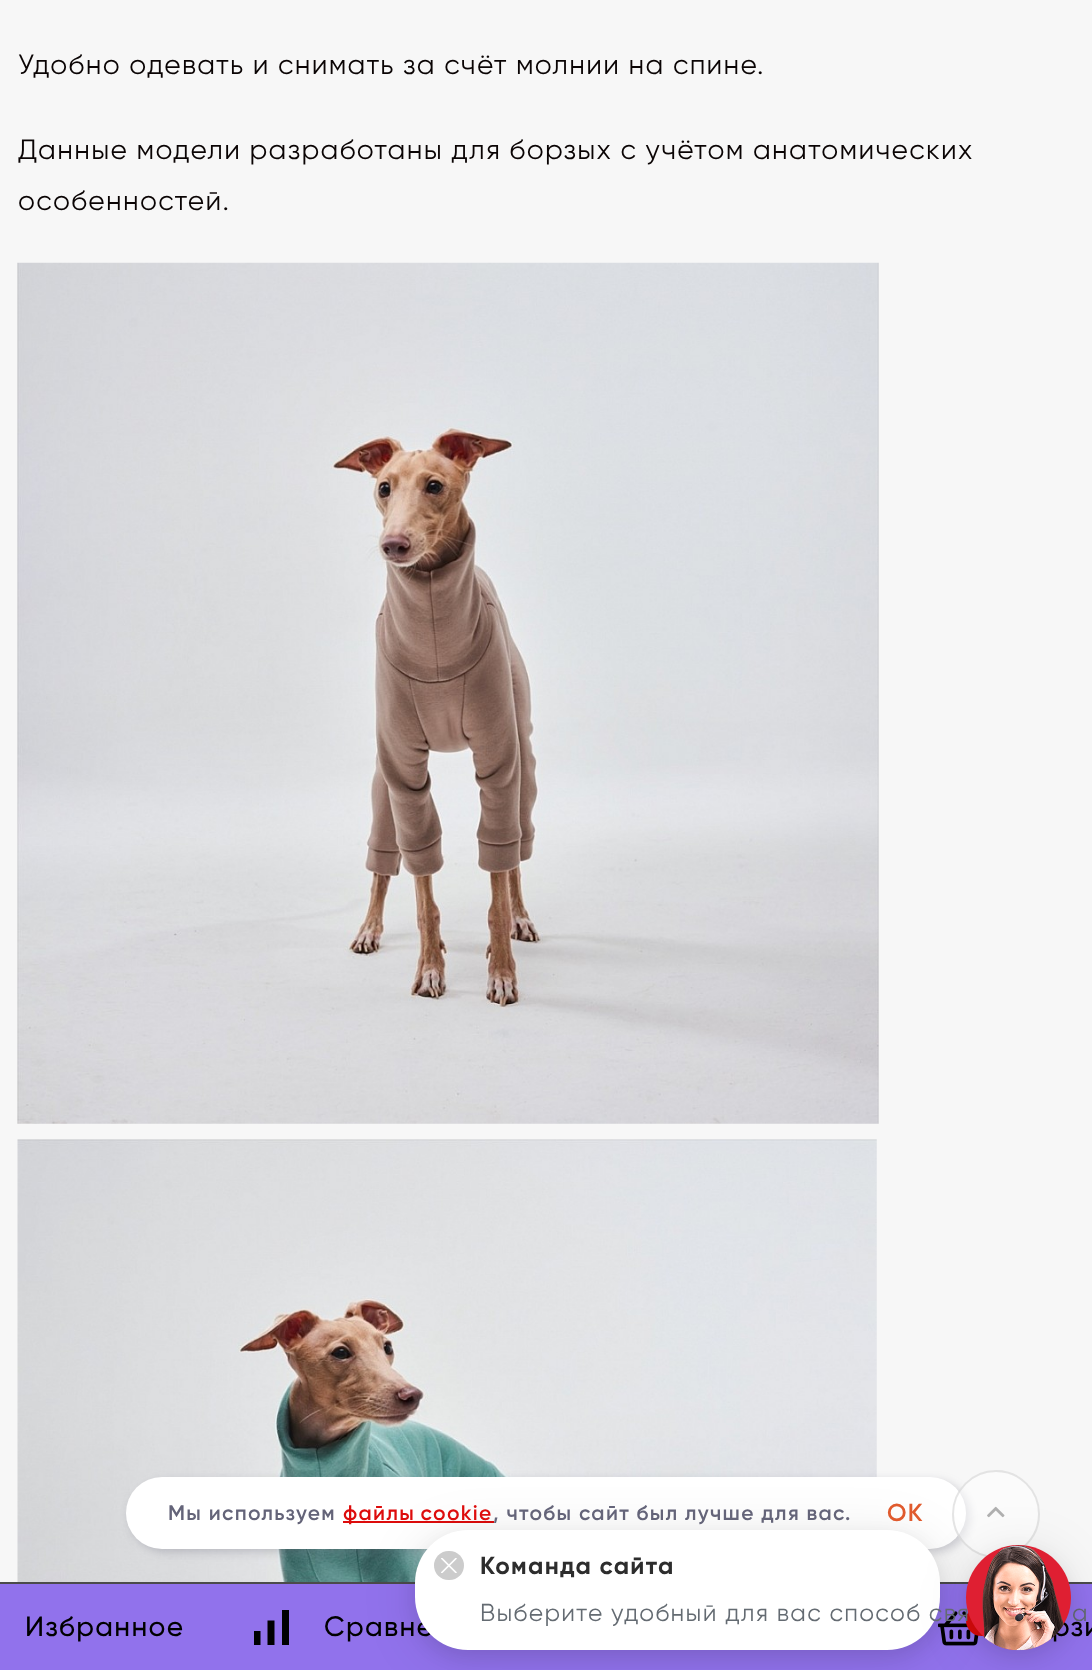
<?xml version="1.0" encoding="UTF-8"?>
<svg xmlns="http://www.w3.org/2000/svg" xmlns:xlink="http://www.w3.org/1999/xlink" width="1092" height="1670">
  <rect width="100%" height="100%" fill="#f7f7f7" />
  <image x="17" y="262" width="862" height="862" xlink:href="image1.png" />
  <image x="17" y="1139" width="860" height="443" xlink:href="image2.png" />
  <rect x="130" y="1481" width="840" height="71" rx="35.5" fill="#646478" fill-opacity="0.3" filter="blur(5px)" />
  <rect x="126" y="1477" width="840" height="72" rx="36" fill="#ffffff" />
  <rect x="343" y="1521" width="151" height="2" fill="#dd0c0c" />
  <circle cx="996" cy="1514" r="44" fill="#ffffff" fill-opacity="0.5" />
  <circle cx="996" cy="1514" r="43" fill="none" stroke="#cccccc" stroke-opacity="0.5" stroke-width="2" />
  <image x="987" y="1506" width="18" height="12" xlink:href="image3.png" />
  <rect y="1584" width="1092" height="86" fill="#9172ec" />
  <rect y="1582" width="1092" height="2" fill="#4b4b4b" />
  <image x="938" y="1611" width="41" height="35" xlink:href="image6.png" />
  <rect x="966" y="1605" width="32" height="31" rx="15.5" fill="#dd0c0c" />
  <rect x="415" y="1537" width="525" height="120" rx="53" fill="#000000" fill-opacity="0.1" filter="blur(26px)" />
  <rect x="415" y="1537" width="525" height="120" rx="53" fill="#000000" fill-opacity="0.08" filter="blur(9px)" />
  <path d="M 267.5 1645 v -24.5 h 7 v 24.5 z m 14.5 0 v -35 h 7 v 35 z m -28 0 v -14 h 6.5 v 14 z" fill="#000000" />
  <text x="18" y="74" style="font-family: Gilroy; font-size: 28px; letter-spacing: 1.3px; fill: #0a0404">Удобно одевать и снимать за счёт молнии на спине.</text>
  <text x="18" y="159" style="font-family: Gilroy; font-size: 28px; letter-spacing: 1.3px; fill: #0a0404">Данные модели разработаны для борзых с учётом анатомических</text>
  <text x="18" y="210" style="font-family: Gilroy; font-size: 28px; letter-spacing: 1.3px; fill: #0a0404">особенностей.</text>
  <text x="168" y="1520" style="font-family: Gilroy; font-size: 21px; font-weight: 600; letter-spacing: 1.3px; fill: #646479">Мы используем</text>
  <text x="343" y="1520" word-spacing="-1" style="font-family: Gilroy; font-size: 21px; font-weight: 600; letter-spacing: 1.3px; fill: #dd0c0c">файлы cookie</text>
  <text x="493" y="1520" style="font-family: Gilroy; font-size: 21px; font-weight: 600; letter-spacing: 1.3px; fill: #646479">, чтобы сайт был лучше для вас.</text>
  <text x="887" y="1521" style="font-family: Gilroy; font-size: 24.5px; font-weight: 600; letter-spacing: 1.3px; fill: #e05a2d">ОК</text>
  <text x="1072" y="1621" style="font-family: Gilroy; font-size: 24.5px; letter-spacing: 1.3px; fill: #646b72">а</text>
  <text x="25" y="1636" style="font-family: Gilroy; font-size: 28px; font-weight: 500; letter-spacing: 1.3px; fill: #000000">Избранное</text>
  <text x="324" y="1636" style="font-family: Gilroy; font-size: 28px; font-weight: 500; letter-spacing: 1.3px; fill: #000000">Сравне</text>
  <rect x="415" y="1530" width="525" height="120" rx="53" fill="#ffffff" />
  <rect x="966" y="1552" width="105" height="105" rx="52.5" fill="#000000" fill-opacity="0.08" filter="blur(9px)" />
  <rect x="966" y="1552" width="105" height="105" rx="52.5" fill="#000000" fill-opacity="0.1" filter="blur(26px)" />
  <rect x="434" y="1551" width="30" height="29" rx="14.5" fill="#cccccc" />
  <image x="441" y="1558" width="16" height="15" xlink:href="image5.png" />
  <text x="480" y="1621" style="font-family: Gilroy; font-size: 24.5px; letter-spacing: 1.3px; fill: #646b72">Выберите удобный для вас способ свя</text>
  <text x="480" y="1574" style="font-family: Gilroy; font-size: 24.5px; font-weight: bold; letter-spacing: 1.3px; fill: #2d2d2d">Команда сайта</text>
  <text x="1052" y="1636" style="font-family: Gilroy; font-size: 28px; font-weight: 500; letter-spacing: 1.3px; fill: #000000">рзи</text>
  <circle cx="1018.5" cy="1597.5" r="52.5" fill="#df1f32" />
  <image x="982" y="1545" width="82" height="106" xlink:href="image4.png" />
</svg>
